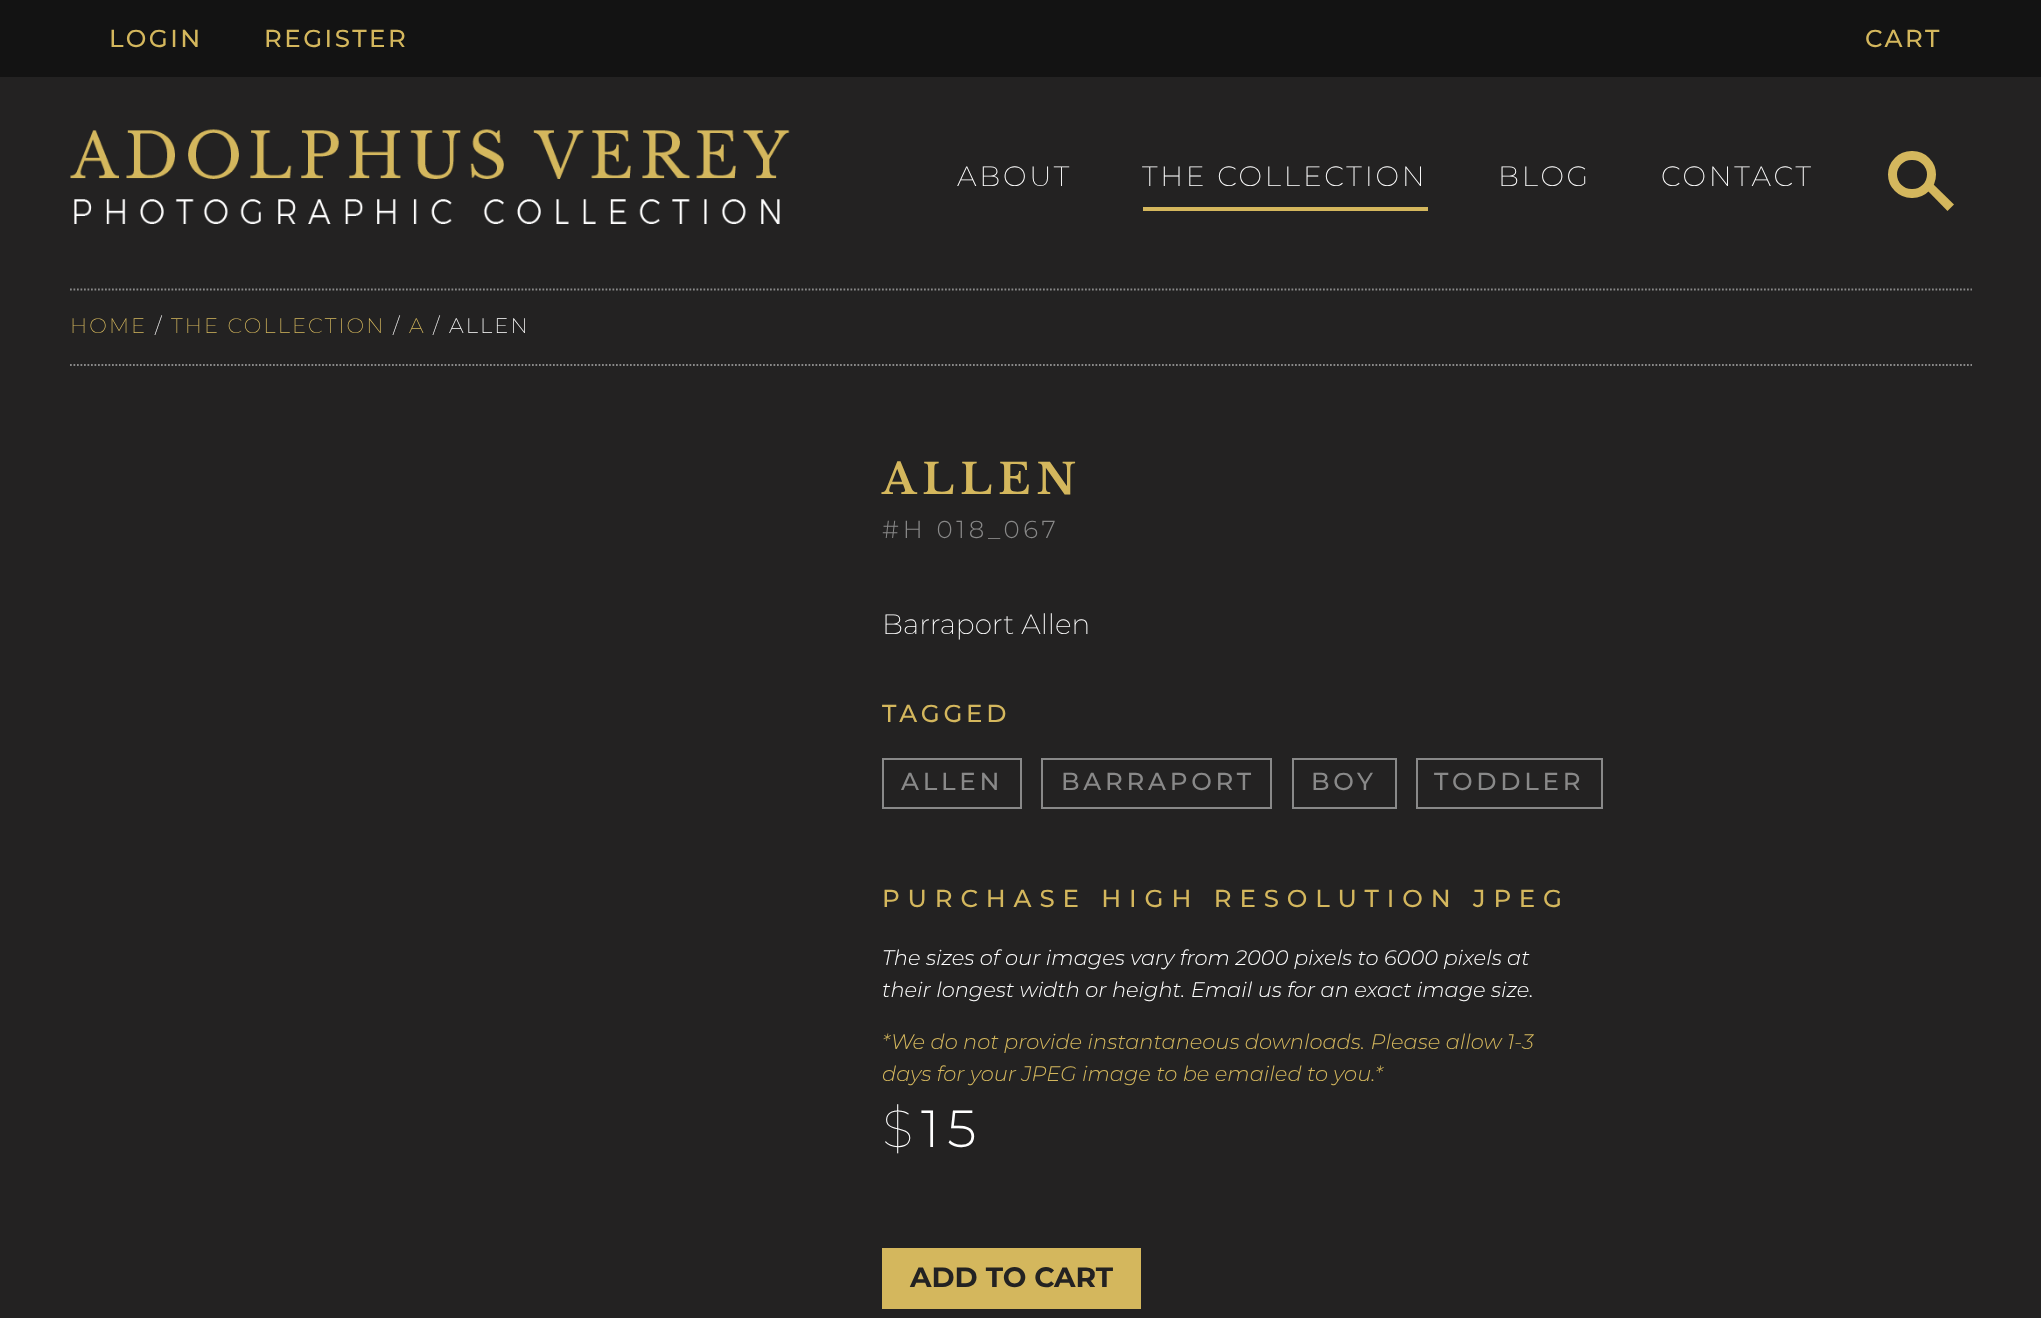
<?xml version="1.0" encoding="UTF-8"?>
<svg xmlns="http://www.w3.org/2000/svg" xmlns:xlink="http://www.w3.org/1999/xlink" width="2041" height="1318">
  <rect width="100%" height="100%" fill="#232222" />
  <rect width="2041" height="77" fill="#131313" />
  <image x="70" y="129" width="720" height="95" xlink:href="image1.png" />
  <rect x="1143" y="207" width="285" height="4" fill="#d4b75d" />
  <rect x="1892.5" y="155.5" width="39" height="38" rx="19" fill="none" stroke="#d4b75d" stroke-width="9" />
  <path d="M 1931.5 182.5 l 22.5 22 l -6.5 6.5 l -22 -22.5 z" fill="#d4b75d" />
  <path d="M 70 289.5 h 1902" fill="none" stroke="#898989" stroke-width="1.8" stroke-dasharray="1.75 1.75" />
  <path d="M 70 365 h 1902" fill="none" stroke="#898989" stroke-width="1.8" stroke-dasharray="1.75 1.75" />
  <rect x="883" y="759" width="138" height="49" fill="none" stroke="#898989" stroke-width="2" />
  <rect x="1042" y="759" width="229" height="49" fill="none" stroke="#898989" stroke-width="2" />
  <rect x="1293" y="759" width="103" height="49" fill="none" stroke="#898989" stroke-width="2" />
  <rect x="1417" y="759" width="185" height="49" fill="none" stroke="#898989" stroke-width="2" />
  <rect x="882" y="1248" width="259" height="61" fill="#d4b75d" />
  <text x="109" y="47" style="font-family: Montserrat; font-size: 24.5px; font-weight: 500; letter-spacing: 2.5px; fill: #d4b75d">LOGIN</text>
  <text x="264" y="47" style="font-family: Montserrat; font-size: 24.5px; font-weight: 500; letter-spacing: 2.5px; fill: #d4b75d">REGISTER</text>
  <text x="1865" y="47" style="font-family: Montserrat; font-size: 24.5px; font-weight: 500; letter-spacing: 2.5px; fill: #d4b75d">CART</text>
  <text x="957" y="186" style="font-family: Montserrat; font-size: 28px; font-weight: 200; letter-spacing: 2.75px; fill: #ffffff">ABOUT</text>
  <text x="1142" y="186" style="font-family: Montserrat; font-size: 28px; font-weight: 200; letter-spacing: 2.75px; fill: #ffffff">THE COLLECTION</text>
  <text x="1498" y="186" style="font-family: Montserrat; font-size: 28px; font-weight: 200; letter-spacing: 2.75px; fill: #ffffff">BLOG</text>
  <text x="1661" y="186" style="font-family: Montserrat; font-size: 28px; font-weight: 200; letter-spacing: 2.75px; fill: #ffffff">CONTACT</text>
  <text x="70" y="333" style="font-family: Montserrat; font-size: 21px; font-weight: 200; letter-spacing: 2.1px; fill: #d4b75d">HOME</text>
  <text x="155" y="333" style="font-family: Montserrat; font-size: 21px; font-weight: 200; letter-spacing: 2.1px; fill: #ffffff">/</text>
  <text x="171" y="333" style="font-family: Montserrat; font-size: 21px; font-weight: 200; letter-spacing: 2.1px; fill: #d4b75d">THE COLLECTION</text>
  <text x="393" y="333" style="font-family: Montserrat; font-size: 21px; font-weight: 200; letter-spacing: 2.1px; fill: #ffffff">/</text>
  <text x="409" y="333" style="font-family: Montserrat; font-size: 21px; font-weight: 200; letter-spacing: 2.1px; fill: #d4b75d">A</text>
  <text x="433" y="333" style="font-family: Montserrat; font-size: 21px; font-weight: 200; letter-spacing: 2.1px; fill: #ffffff">/ ALLEN</text>
  <text x="882" y="494" style="font-family: Libre Baskerville; font-size: 42px; font-weight: bold; letter-spacing: 6.25px; fill: #d4b75d">ALLEN</text>
  <text x="882" y="538" style="font-family: Montserrat; font-size: 24.5px; font-weight: 300; letter-spacing: 3.75px; fill: #898989">#H 018_067</text>
  <text x="882" y="634" style="font-family: Montserrat; font-size: 28px; font-weight: 200; fill: #ffffff">Barraport Allen</text>
  <text x="882" y="722" style="font-family: Montserrat; font-size: 24.5px; font-weight: 500; letter-spacing: 3.75px; fill: #d4b75d">TAGGED</text>
  <text x="901" y="790" style="font-family: Montserrat; font-size: 24.5px; font-weight: 500; letter-spacing: 3.75px; fill: #898989">ALLEN</text>
  <text x="1061" y="790" style="font-family: Montserrat; font-size: 24.5px; font-weight: 500; letter-spacing: 3.75px; fill: #898989">BARRAPORT</text>
  <text x="1311" y="790" style="font-family: Montserrat; font-size: 24.5px; font-weight: 500; letter-spacing: 3.75px; fill: #898989">BOY</text>
  <text x="1434" y="790" style="font-family: Montserrat; font-size: 24.5px; font-weight: 500; letter-spacing: 3.75px; fill: #898989">TODDLER</text>
  <text x="882" y="907" style="font-family: Montserrat; font-size: 24.5px; font-weight: 500; letter-spacing: 7.9px; fill: #d4b75d">PURCHASE HIGH RESOLUTION JPEG</text>
  <text x="882" y="965" style="font-family: Montserrat; font-size: 21px; font-weight: 300; font-style: italic; fill: #ffffff">The sizes of our images vary from 2000 pixels to 6000 pixels at</text>
  <text x="882" y="997" style="font-family: Montserrat; font-size: 21px; font-weight: 300; font-style: italic; fill: #ffffff">their longest width or height. Email us for an exact image size.</text>
  <text x="882" y="1049" style="font-family: Montserrat; font-size: 21px; font-weight: 300; font-style: italic; fill: #d4b75d">*</text>
  <text x="891" y="1049" style="font-family: Montserrat; font-size: 21px; font-weight: 300; font-style: italic; fill: #d4b75d">We do not provide instantaneous downloads. Please allow 1-3</text>
  <text x="882" y="1081" style="font-family: Montserrat; font-size: 21px; font-weight: 300; font-style: italic; fill: #d4b75d">days for your JPEG image to be emailed to you.*</text>
  <text x="882" y="1147" style="font-family: Montserrat; font-size: 52px; font-weight: 100; letter-spacing: 7.9px; fill: #ffffff">$</text>
  <text x="921" y="1147" style="font-family: Montserrat; font-size: 52px; font-weight: 300; letter-spacing: 7.9px; fill: #ffffff">15</text>
  <text x="910" y="1287" style="font-family: Montserrat; font-size: 28px; font-weight: bold; fill: #232222">ADD TO CART</text>
</svg>
